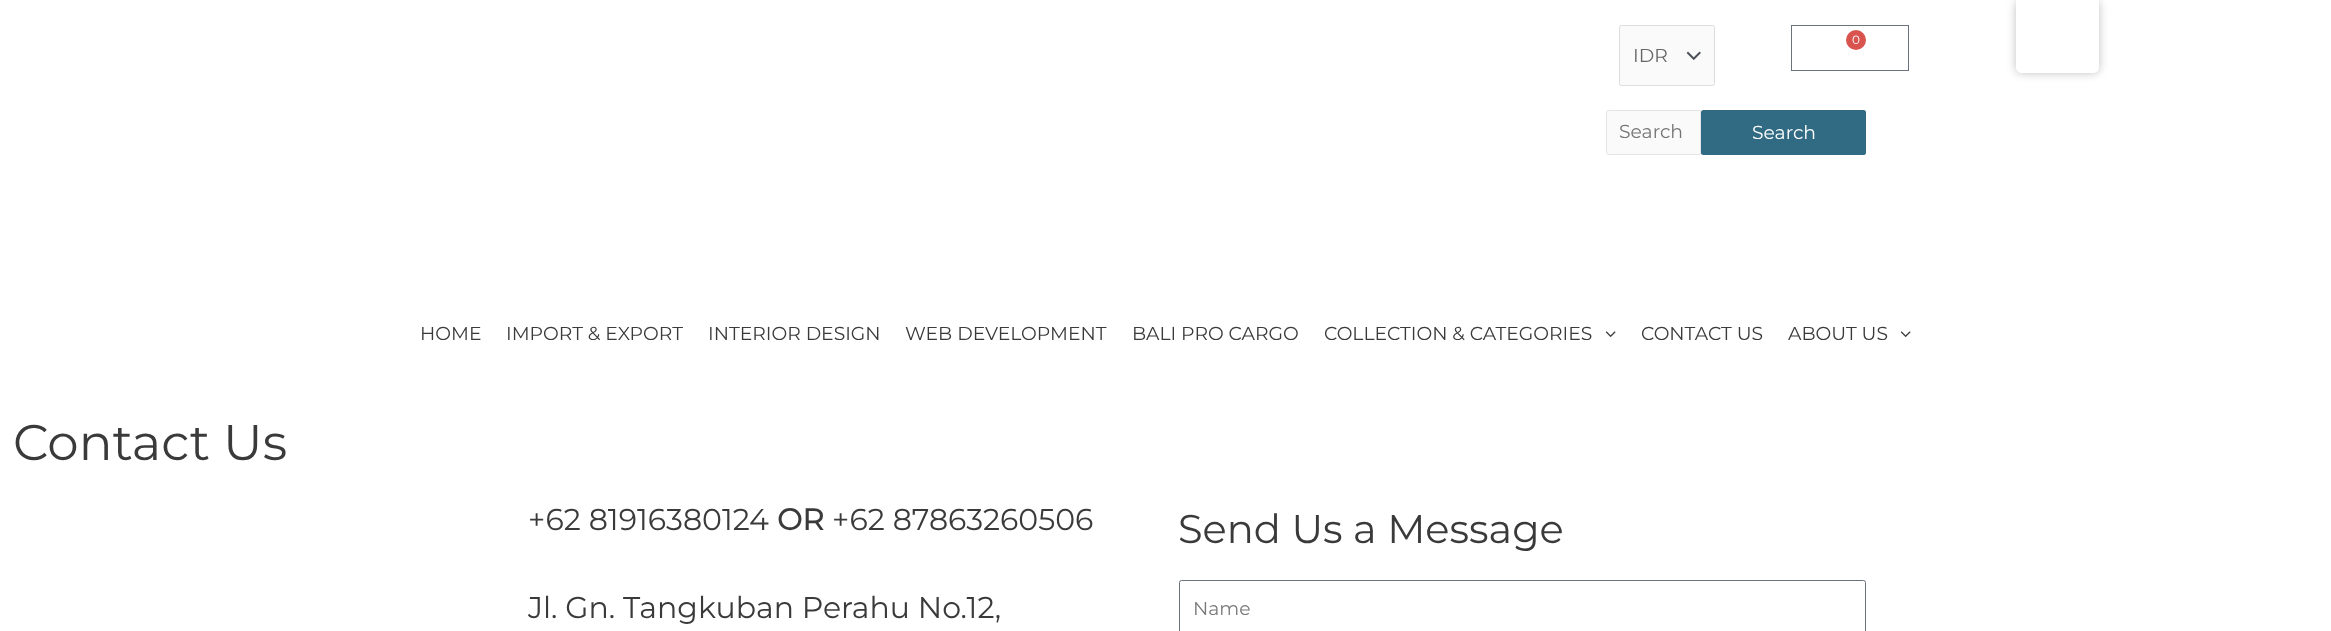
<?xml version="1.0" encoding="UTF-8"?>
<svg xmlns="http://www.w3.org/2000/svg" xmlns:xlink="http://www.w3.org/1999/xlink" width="2331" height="631">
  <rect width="100%" height="100%" fill="#ffffff" />
  <rect x="1791.5" y="25.5" width="117" height="45" fill="none" stroke="#69727d" />
  <circle cx="1856" cy="40" r="10" fill="#d9534f" />
  <rect x="1619" y="25" width="96" height="61" rx="2.5" fill="#fafafa" />
  <image x="1686" y="51" width="15" height="9" xlink:href="image1.png" />
  <rect x="1619.5" y="25.5" width="95" height="60" rx="2" fill="none" stroke="#dddddd" />
  <path d="M 1608.5 110.5 h 92 v 44 h -92 c -1 0 -2 -1 -2 -2 v -40 c 0 -1 1 -2 2 -2 z" fill="#fafafa" stroke="#e5e5e5" />
  <rect x="1701" y="110" width="165" height="45" rx="2.5" fill="#316b83" />
  <image x="1605" y="331" width="11" height="6" xlink:href="image2.png" />
  <image x="1900" y="331" width="11" height="6" xlink:href="image2.png" />
  <rect x="1179.5" y="580.5" width="686" height="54" rx="2" fill="none" stroke="#69727d" />
  <rect x="2016" width="83" height="73" rx="6" fill="#000000" fill-opacity="0.25" filter="blur(5px)" />
  <path d="M 2016 0 h 83 v 67 c 0 3.5 -2.5 6 -6 6 h -71 c -3.5 0 -6 -2.5 -6 -6 z" fill="#ffffff" />
  <text x="1852" y="44" style="font-family: Montserrat; font-size: 12px; font-weight: 100; fill: #ffffff">0</text>
  <text x="1633" y="62" style="font-family: Montserrat; font-size: 18.75px; font-weight: 100; fill: #666666">IDR</text>
  <text x="1619" y="138" style="font-family: Montserrat; font-size: 18.75px; font-weight: 100; fill: #757575">Search</text>
  <text x="1752" y="139" style="font-family: Montserrat; font-size: 18.75px; font-weight: 100; fill: #ffffff">Search</text>
  <text x="420" y="340" style="font-family: Montserrat; font-size: 18.75px; font-weight: 100; fill: #3a3a3a">HOME</text>
  <text x="506" y="340" style="font-family: Montserrat; font-size: 18.75px; font-weight: 100; fill: #3a3a3a">IMPORT &amp; EXPORT</text>
  <text x="708" y="340" style="font-family: Montserrat; font-size: 18.75px; font-weight: 100; fill: #3a3a3a">INTERIOR DESIGN</text>
  <text x="905" y="340" style="font-family: Montserrat; font-size: 18.75px; font-weight: 100; fill: #3a3a3a">WEB DEVELOPMENT</text>
  <text x="1132" y="340" style="font-family: Montserrat; font-size: 18.75px; font-weight: 100; fill: #3a3a3a">BALI PRO CARGO</text>
  <text x="1324" y="340" style="font-family: Montserrat; font-size: 18.75px; font-weight: 100; fill: #3a3a3a">COLLECTION &amp; CATEGORIES</text>
  <text x="1641" y="340" style="font-family: Montserrat; font-size: 18.75px; font-weight: 100; fill: #3a3a3a">CONTACT US</text>
  <text x="1788" y="340" style="font-family: Montserrat; font-size: 18.75px; font-weight: 100; fill: #3a3a3a">ABOUT US</text>
  <text x="13" y="460" style="font-family: Montserrat; font-size: 50px; font-weight: 100; fill: #3a3a3a">Contact Us</text>
  <text x="528" y="530" style="font-family: Montserrat; font-size: 30px; font-weight: 100; fill: #3a3a3a">+62 81916380124</text>
  <text x="777" y="530" style="font-family: Montserrat; font-size: 30px; font-weight: bold; fill: #3a3a3a">OR</text>
  <text x="832" y="530" style="font-family: Montserrat; font-size: 30px; font-weight: 100; fill: #3a3a3a">+62 87863260506</text>
  <text x="528" y="618" style="font-family: Montserrat; font-size: 30px; font-weight: 100; fill: #3a3a3a">Jl. Gn. Tangkuban Perahu No.12,</text>
  <text x="1178" y="543" style="font-family: Montserrat; font-size: 40px; font-weight: 100; fill: #3a3a3a">Send Us a Message</text>
  <text x="1193" y="615" style="font-family: Montserrat; font-size: 18.75px; font-weight: 100; fill: #797a7c">Name</text>
</svg>
